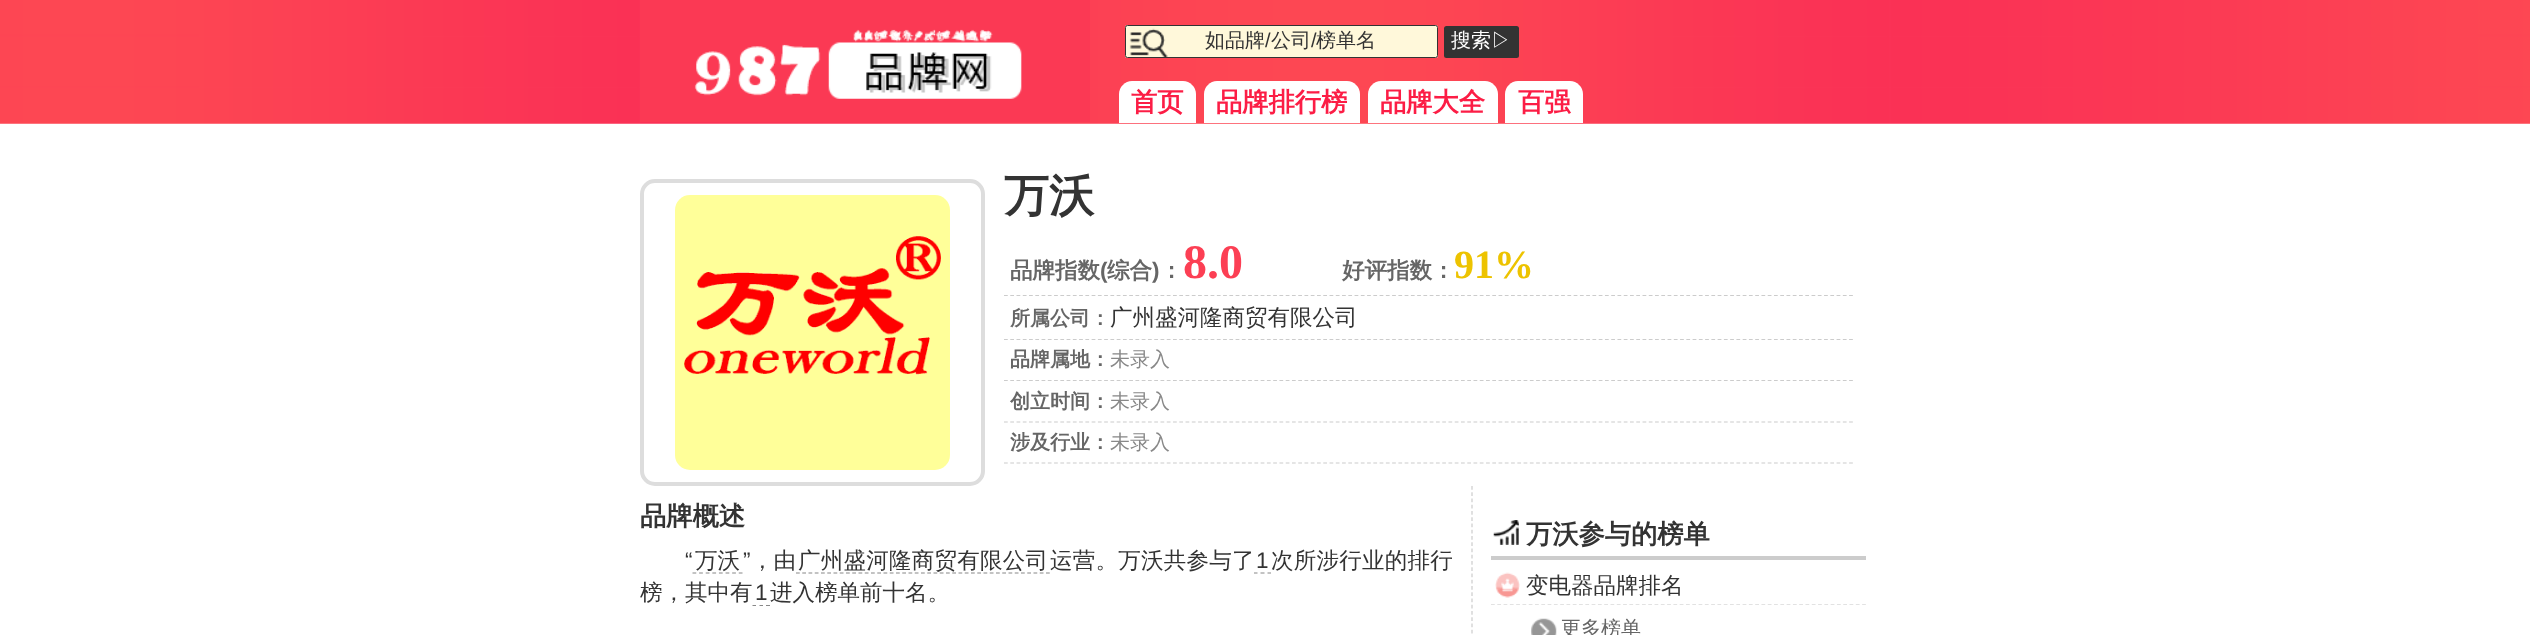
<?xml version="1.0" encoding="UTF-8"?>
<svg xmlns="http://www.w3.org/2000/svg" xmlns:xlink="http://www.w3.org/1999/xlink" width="2530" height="635">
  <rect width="100%" height="100%" fill="#ffffff" />
  <image x="0" y="0" width="2530" height="124" xlink:href="image1.png" />
  <image x="640" y="0" width="450" height="122" xlink:href="image2.png" />
  <rect x="1125" y="25" width="313" height="33" rx="2.5" fill="#fff8da" />
  <image x="1129" y="28" width="39" height="29" xlink:href="image3.png" />
  <rect x="1125.5" y="25.5" width="312" height="32" rx="2" fill="none" stroke="#333333" />
  <rect x="1444" y="26" width="75" height="32" rx="2.5" fill="#333333" />
  <path d="M 1132 81 h 51 c 7 0 13 6 13 13 v 29 h -77 v -29 c 0 -7 6 -13 13 -13 z" fill="#ffffff" />
  <path d="M 1217 81 h 130 c 7 0 13 6 13 13 v 29 h -156 v -29 c 0 -7 6 -13 13 -13 z" fill="#ffffff" />
  <path d="M 1381 81 h 104 c 7 0 13 6 13 13 v 29 h -130 v -29 c 0 -7 6 -13 13 -13 z" fill="#ffffff" />
  <path d="M 1518 81 h 52 c 7 0 13 6 13 13 v 29 h -78 v -29 c 0 -7 6 -13 13 -13 z" fill="#ffffff" />
  <rect x="642" y="181" width="341" height="303" rx="13" fill="none" stroke="#dddddd" stroke-width="4" />
  <image x="675" y="195" width="275" height="275" xlink:href="image4.png" />
  <path d="M 1004 295.5 h 850" fill="none" stroke="#cccccc" stroke-width="1.2" stroke-dasharray="3.75 2.51" />
  <path d="M 1004 339.5 h 850" fill="none" stroke="#cccccc" stroke-width="1.2" stroke-dasharray="3.75 2.51" />
  <path d="M 1004 380.5 h 850" fill="none" stroke="#cccccc" stroke-width="1.2" stroke-dasharray="3.75 2.51" />
  <path d="M 1004 422 h 850" fill="none" stroke="#cccccc" stroke-width="1.2" stroke-dasharray="3.75 2.51" />
  <path d="M 1004 463 h 850" fill="none" stroke="#cccccc" stroke-width="1.2" stroke-dasharray="3.75 2.51" />
  <path d="M 692.5 573 h 50" fill="none" stroke="#888888" stroke-width="1.2" stroke-dasharray="3.75 2.86" />
  <path d="M 796 573 h 254" fill="none" stroke="#888888" stroke-width="1.2" stroke-dasharray="3.75 2.5" />
  <path d="M 1254 573 h 3.5 m 3 0 h 4 m 3 0 h 3.5" fill="none" stroke="#888888" stroke-width="1.2" />
  <path d="M 752.5 605.5 h 3.5 m 3.5 0 h 3.5 m 3 0 h 4" fill="none" stroke="#888888" stroke-width="1.2" />
  <path d="M 1472 486 v 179" fill="none" stroke="#cccccc" stroke-width="1.2" stroke-dasharray="3.75 2.5" />
  <image x="1493" y="520" width="26" height="25" xlink:href="image5.png" />
  <rect x="1491" y="556" width="375" height="4" fill="#cccccc" />
  <image x="1495" y="572" width="25" height="26" xlink:href="image6.png" />
  <path d="M 1491 604.5 h 375" fill="none" stroke="#e2e2e2" stroke-width="1.2" stroke-dasharray="3.75 2.54" />
  <image x="1531" y="618" width="26" height="17" xlink:href="image7.png" />
  <text x="1205" y="47" style="font-family: WenQuanYi Zen Hei; font-size: 20px; font-weight: 500; fill: #333333">如品牌</text>
  <text x="1265" y="47" style="font-family: Liberation Sans; font-size: 20px; fill: #333333">/</text>
  <text x="1271" y="47" style="font-family: WenQuanYi Zen Hei; font-size: 20px; font-weight: 500; fill: #333333">公司</text>
  <text x="1311" y="47" style="font-family: Liberation Sans; font-size: 20px; fill: #333333">/</text>
  <text x="1316" y="47" style="font-family: WenQuanYi Zen Hei; font-size: 20px; font-weight: 500; fill: #333333">榜单名</text>
  <text x="1451" y="47" style="font-family: WenQuanYi Zen Hei; font-size: 20px; font-weight: 500; fill: #ffffff">搜索▷</text>
  <text x="1131" y="111" style="font-family: WenQuanYi Zen Hei; font-size: 26.25px; font-weight: bold; fill: #fc1d45">首页</text>
  <text x="1216" y="111" style="font-family: WenQuanYi Zen Hei; font-size: 26.25px; font-weight: bold; fill: #fc1d45">品牌排行榜</text>
  <text x="1380" y="111" style="font-family: WenQuanYi Zen Hei; font-size: 26.25px; font-weight: bold; fill: #fc1d45">品牌大全</text>
  <text x="1518" y="111" style="font-family: WenQuanYi Zen Hei; font-size: 26.25px; font-weight: bold; fill: #fc1d45">百强</text>
  <text x="1004" y="211" style="font-family: WenQuanYi Zen Hei; font-size: 45px; font-weight: bold; fill: #333333">万沃</text>
  <text x="1010" y="278" style="font-family: WenQuanYi Zen Hei; font-size: 22.5px; font-weight: bold; fill: #666666">品牌指数</text>
  <text x="1100" y="278" style="font-family: Liberation Sans; font-size: 22.5px; font-weight: bold; fill: #666666">(</text>
  <text x="1107" y="278" style="font-family: WenQuanYi Zen Hei; font-size: 22.5px; font-weight: bold; fill: #666666">综合</text>
  <text x="1152" y="278" style="font-family: Liberation Sans; font-size: 22.5px; font-weight: bold; fill: #666666">)</text>
  <text x="1160" y="278" style="font-family: WenQuanYi Zen Hei; font-size: 22.5px; font-weight: bold; fill: #666666">：</text>
  <text x="1183" y="278" style="font-family: Liberation Serif; font-size: 48px; font-weight: bold; fill: #fc3f54">8.0</text>
  <text x="1342" y="278" style="font-family: WenQuanYi Zen Hei; font-size: 22.5px; font-weight: bold; fill: #666666">好评指数：</text>
  <text x="1454" y="278" style="font-family: Liberation Serif; font-size: 40px; font-weight: bold; fill: #edc300">91%</text>
  <text x="1010" y="325" style="font-family: WenQuanYi Zen Hei; font-size: 20px; font-weight: bold; fill: #666666">所属公司：</text>
  <text x="1110" y="325" style="font-family: WenQuanYi Zen Hei; font-size: 22.5px; font-weight: 500; fill: #333333">广州盛河隆商贸有限公司</text>
  <text x="1010" y="366" style="font-family: WenQuanYi Zen Hei; font-size: 20px; font-weight: bold; fill: #666666">品牌属地：</text>
  <text x="1110" y="366" style="font-family: WenQuanYi Zen Hei; font-size: 20px; font-weight: 500; fill: #888888">未录入</text>
  <text x="1010" y="408" style="font-family: WenQuanYi Zen Hei; font-size: 20px; font-weight: bold; fill: #666666">创立时间：</text>
  <text x="1110" y="408" style="font-family: WenQuanYi Zen Hei; font-size: 20px; font-weight: 500; fill: #888888">未录入</text>
  <text x="1010" y="449" style="font-family: WenQuanYi Zen Hei; font-size: 20px; font-weight: bold; fill: #666666">涉及行业：</text>
  <text x="1110" y="449" style="font-family: WenQuanYi Zen Hei; font-size: 20px; font-weight: 500; fill: #888888">未录入</text>
  <text x="640" y="525" style="font-family: WenQuanYi Zen Hei; font-size: 26.25px; font-weight: bold; fill: #333333">品牌概述</text>
  <text x="685" y="568" style="font-family: Liberation Sans; font-size: 22.5px; fill: #333333">“</text>
  <text x="695" y="568" style="font-family: WenQuanYi Zen Hei; font-size: 22.5px; font-weight: 500; fill: #333333">万沃</text>
  <text x="743" y="568" style="font-family: Liberation Sans; font-size: 22.5px; fill: #333333">”</text>
  <text x="751" y="568" style="font-family: WenQuanYi Zen Hei; font-size: 22.5px; font-weight: 500; fill: #333333">，由</text>
  <text x="798" y="568" style="font-family: WenQuanYi Zen Hei; font-size: 22.5px; font-weight: 500; letter-spacing: 0.25px; fill: #333333">广州盛河隆商贸有限公司</text>
  <text x="1050" y="568" style="font-family: WenQuanYi Zen Hei; font-size: 22.5px; font-weight: 500; letter-spacing: 0.25px; fill: #333333">运营。万沃共参与了</text>
  <text x="1256" y="568" style="font-family: Liberation Sans; font-size: 22.5px; fill: #333333">1</text>
  <text x="1271" y="568" style="font-family: WenQuanYi Zen Hei; font-size: 22.5px; font-weight: 500; letter-spacing: 0.25px; fill: #333333">次所涉行业的排行</text>
  <text x="640" y="600" style="font-family: WenQuanYi Zen Hei; font-size: 22.5px; font-weight: 500; fill: #333333">榜，其中有</text>
  <text x="755" y="600" style="font-family: Liberation Sans; font-size: 22.5px; fill: #333333">1</text>
  <text x="770" y="600" style="font-family: WenQuanYi Zen Hei; font-size: 22.5px; font-weight: 500; fill: #333333">进入榜单前十名。</text>
  <text x="1526" y="543" style="font-family: WenQuanYi Zen Hei; font-size: 26.25px; font-weight: bold; fill: #333333">万沃参与的榜单</text>
  <text x="1526" y="593" style="font-family: WenQuanYi Zen Hei; font-size: 22.5px; font-weight: 500; fill: #333333">变电器品牌排名</text>
  <text x="1561" y="635" style="font-family: WenQuanYi Zen Hei; font-size: 20px; font-weight: 500; fill: #666666">更多榜单</text>
</svg>
